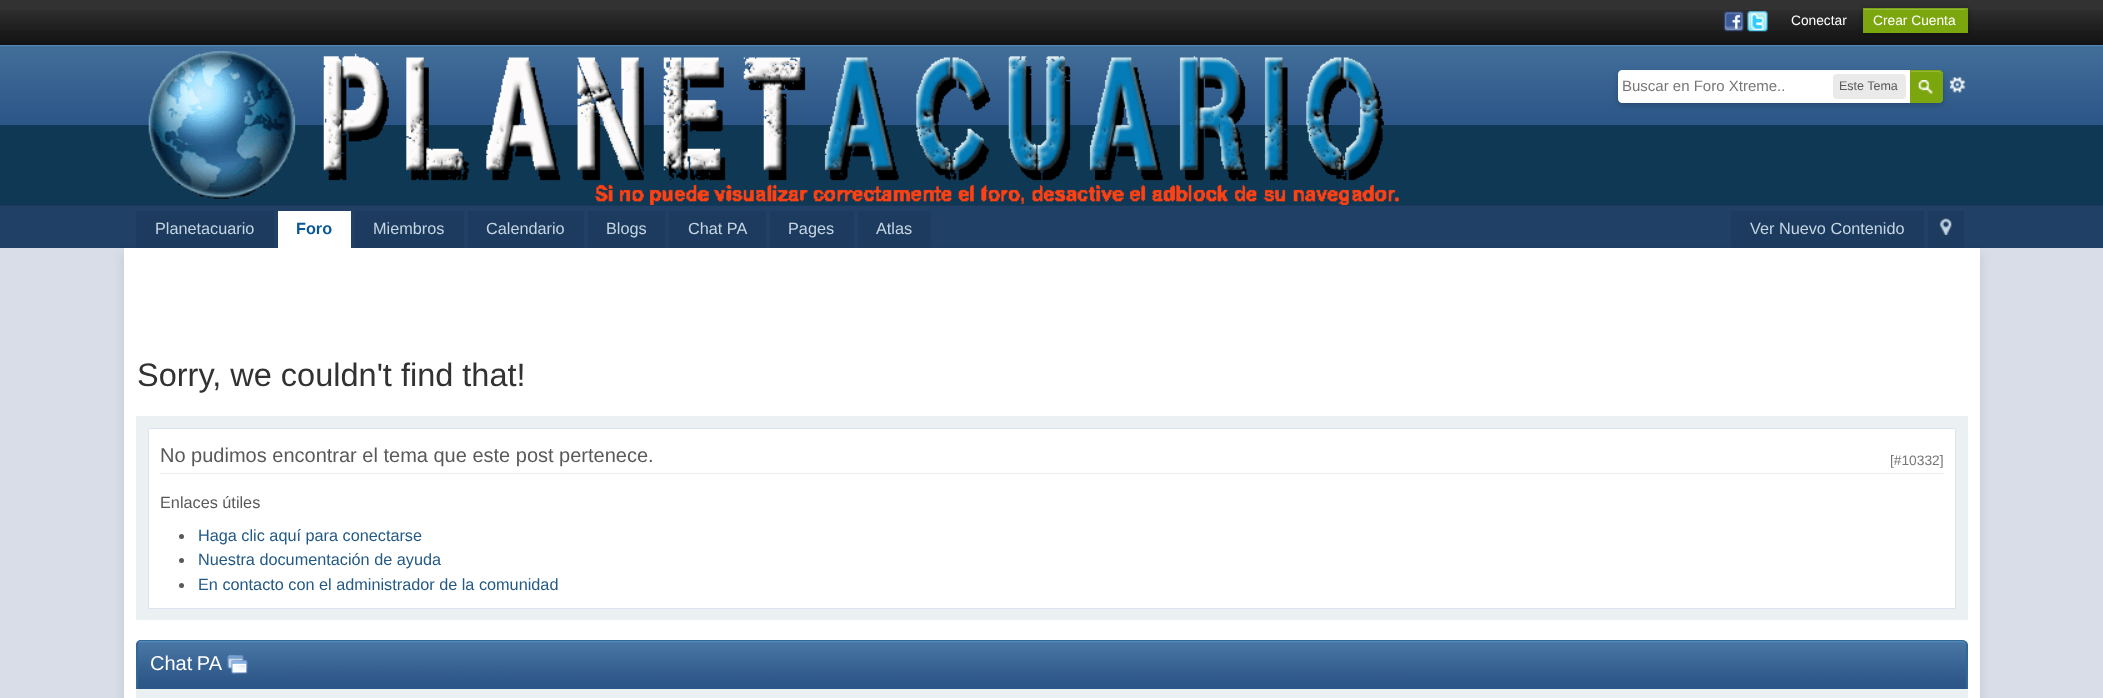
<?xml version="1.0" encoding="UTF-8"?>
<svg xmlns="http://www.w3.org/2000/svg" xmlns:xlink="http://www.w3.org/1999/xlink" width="2103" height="698">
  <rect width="100%" height="100%" fill="#d8dde8" />
  <rect width="2103" height="10" fill="#323232" />
  <image x="0" y="10" width="2103" height="35" xlink:href="image1.png" />
  <image x="1723" y="11" width="21" height="21" xlink:href="image2.png" />
  <image x="1747" y="11" width="21" height="21" xlink:href="image3.png" />
  <rect x="1863" y="9" width="105" height="25" fill="#000000" fill-opacity="0.4" filter="blur(2.5px)" />
  <rect x="1863" y="8" width="105" height="25" fill="#7ba60d" />
  <rect x="1864" y="9" width="102" height="1" fill="#95b83d" />
  <rect y="125" width="2103" height="80" fill="#0f3854" />
  <image x="0" y="45" width="2103" height="80" xlink:href="image4.png" />
  <rect y="205" width="2103" height="1" fill="#1b3759" />
  <image x="148" y="51" width="1251" height="154" xlink:href="image5.png" />
  <image x="1949" y="77" width="17" height="16" xlink:href="image7.png" />
  <rect x="1618" y="73" width="325" height="32" rx="5" fill="#000000" fill-opacity="0.2" filter="blur(2.5px)" />
  <path d="M 1622 70 h 316 c 3 0 5 2 5 5 v 23 c 0 3 -2 5 -5 5 h -316 c -2 0 -4 -2 -4 -4 v -25 c 0 -2 2 -4 4 -4 z" fill="#ffffff" />
  <rect x="1833" y="74" width="73" height="25" rx="4" fill="#eaeaea" />
  <path d="M 1910 70 h 29 c 2 0 4 2 4 4 v 25 c 0 2 -2 4 -4 4 h -29 z" fill="#7ba60d" />
  <image x="1918" y="80" width="15" height="14" xlink:href="image6.png" />
  <path d="M 1911 72 h 28 c 1 0 2 2 2 3 v -1.5 c 0 -1.5 -1 -2.5 -2.5 -2.5 h -27.5 z" fill="#95b83d" />
  <path d="M 1910.5 70.5 h 28.5 c 2 0 3.5 1.5 3.5 3.5 v 25 c 0 2 -1.5 3.5 -3.5 3.5 h -28.5 z" fill="none" stroke="#7ba60d" />
  <rect y="206" width="2103" height="42" fill="#204066" />
  <rect x="124" y="254" width="1856" height="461" fill="#000000" fill-opacity="0.1" filter="blur(5.5px)" />
  <rect x="136" y="211" width="138" height="37" fill="#1c3b5f" />
  <rect x="278" y="211" width="73" height="37" fill="#ffffff" />
  <rect x="355" y="211" width="109" height="37" fill="#1c3b5f" />
  <rect x="468" y="211" width="116" height="37" fill="#1c3b5f" />
  <rect x="588" y="211" width="77" height="37" fill="#1c3b5f" />
  <rect x="669" y="211" width="97" height="37" fill="#1c3b5f" />
  <rect x="770" y="211" width="84" height="37" fill="#1c3b5f" />
  <rect x="858" y="211" width="73" height="37" fill="#1c3b5f" />
  <rect x="1731" y="211" width="193" height="37" fill="#1c3b5f" />
  <rect x="1928" y="211" width="36" height="37" fill="#1c3b5f" />
  <image x="1939" y="218" width="13" height="17" xlink:href="image8.png" />
  <rect x="124" y="248" width="1856" height="450" fill="#ffffff" />
  <rect x="136" y="416" width="1832" height="204" fill="#ebf0f3" />
  <rect x="148.5" y="428.5" width="1807" height="180" fill="#ffffff" stroke="#dbe4ef" />
  <rect x="160" y="473" width="1784" height="1" fill="#ececec" />
  <circle cx="181.5" cy="536.5" r="2.5" fill="#5a5a5a" />
  <circle cx="181.5" cy="560.5" r="2.5" fill="#5a5a5a" />
  <circle cx="181.5" cy="585.5" r="2.5" fill="#5a5a5a" />
  <path d="M 142 641 h 1820 c 2 0 4 2 4 4 v 44 h -1828 v -44 c 0 -2 2 -4 4 -4 z" fill="#2c5687" />
  <image x="136" y="641" width="1832" height="44" xlink:href="image9.png" />
  <path d="M 141 642 h 1821 c 3 0 4 2 4 4 v -1 c 0 -2 -2 -4 -4 -4 h -1820 c -2 0 -4 2 -4 4 v 1 c 0 -2 1 -4 3 -4 z" fill="#528cbc" />
  <path d="M 141 640 h 1821 c 3 0 6 2 6 5 v 44 h -1832 v -44 c 0 -3 2 -5 5 -5 z m 0 1 h 1821 c 3 0 4 2 4 4 v 44 h -1828 v -44 c 0 -2 1 -4 3 -4 z" fill="#316897" fill-rule="evenodd" />
  <image x="227" y="655" width="21" height="19" xlink:href="image10.png" />
  <rect x="136" y="689" width="1832" height="9" fill="#ebf0f3" />
  <text x="1791" y="25" style="font-family: Liberation Sans; font-size: 13.75px; fill: #ffffff">Conectar</text>
  <text x="1873" y="25" style="font-family: Liberation Sans; font-size: 13.75px; fill: #ffffff">Crear Cuenta</text>
  <text x="1622" y="91" style="font-family: Liberation Sans; font-size: 15px; fill: #777777">Buscar en Foro Xtreme..</text>
  <text x="1839" y="90" style="font-family: Liberation Sans; font-size: 12.5px; fill: #595959">Este Tema</text>
  <text x="155" y="234" style="font-family: Liberation Sans; font-size: 16.25px; fill: #c5d5e2">Planetacuario</text>
  <text x="296" y="234" style="font-family: Liberation Sans; font-size: 16.25px; font-weight: bold; fill: #0b5794">Foro</text>
  <text x="373" y="234" style="font-family: Liberation Sans; font-size: 16.25px; fill: #c5d5e2">Miembros</text>
  <text x="486" y="234" style="font-family: Liberation Sans; font-size: 16.25px; fill: #c5d5e2">Calendario</text>
  <text x="606" y="234" style="font-family: Liberation Sans; font-size: 16.25px; fill: #c5d5e2">Blogs</text>
  <text x="688" y="234" style="font-family: Liberation Sans; font-size: 16.25px; fill: #c5d5e2">Chat PA</text>
  <text x="788" y="234" style="font-family: Liberation Sans; font-size: 16.25px; fill: #c5d5e2">Pages</text>
  <text x="876" y="234" style="font-family: Liberation Sans; font-size: 16.25px; fill: #c5d5e2">Atlas</text>
  <text x="1750" y="234" style="font-family: Liberation Sans; font-size: 16.25px; fill: #c5d5e2">Ver Nuevo Contenido</text>
  <text x="137" y="386" style="font-family: Liberation Sans; font-size: 32.5px; fill: #323232">Sorry, we couldn't find that!</text>
  <text x="160" y="462" style="font-family: Liberation Sans; font-size: 20px; fill: #595959">No pudimos encontrar el tema que este post pertenece.</text>
  <text x="1890" y="465" style="font-family: Liberation Sans; font-size: 13.75px; fill: #777777">[#10332]</text>
  <text x="160" y="508" style="font-family: Liberation Sans; font-size: 16.25px; fill: #595959">Enlaces útiles</text>
  <text x="198" y="541" style="font-family: Liberation Sans; font-size: 16.25px; fill: #225985">Haga clic aquí para conectarse</text>
  <text x="198" y="565" style="font-family: Liberation Sans; font-size: 16.25px; fill: #225985">Nuestra documentación de ayuda</text>
  <text x="198" y="590" style="font-family: Liberation Sans; font-size: 16.25px; fill: #225985">En contacto con el administrador de la comunidad</text>
  <text x="150" y="670" word-spacing="-1" style="font-family: Liberation Sans; font-size: 20px; fill: #ffffff">Chat PA</text>
</svg>
